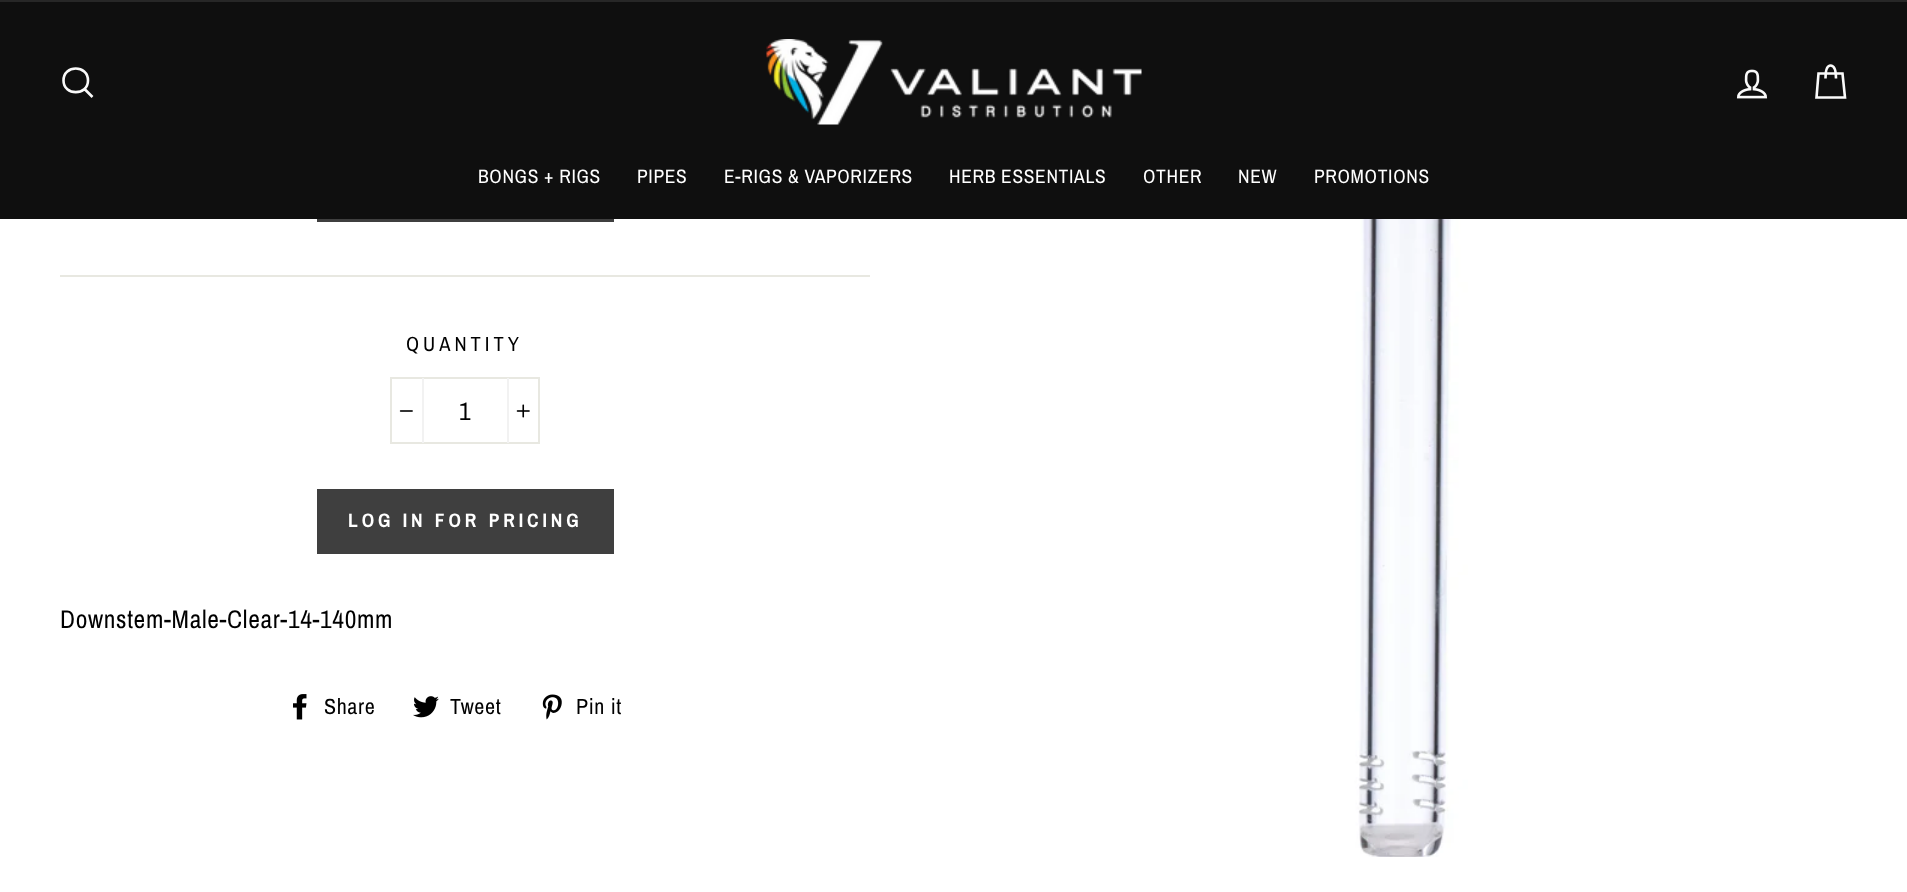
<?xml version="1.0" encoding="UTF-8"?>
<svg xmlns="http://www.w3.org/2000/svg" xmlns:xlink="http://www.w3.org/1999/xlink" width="1907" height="892">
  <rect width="100%" height="100%" fill="#ffffff" />
  <rect y="2" width="1907" height="217" fill="#0f0f0f" />
  <rect width="1907" height="2" fill="#272727" />
  <path d="M 88 80.5 c 0 15.5 -24.5 15.5 -24.5 0 c 0 -16 24.5 -16 24.5 0 z m 4.5 16.5 l -8 -8" fill="none" stroke="#fafafa" stroke-width="2.6" />
  <image x="766" y="39" width="376" height="86" xlink:href="image1.png" />
  <image x="1736" y="69" width="32" height="30" xlink:href="image2.png" />
  <path d="M 1825.5 78.5 c 0 -10.5 2 -13 5 -13 c 3 0 5.5 2.5 5.5 13 m -17.5 -5 h 24 l 2.5 24 h -28.5 z" fill="none" stroke="#fafafa" stroke-width="2.6" />
  <rect x="317" y="219" width="297" height="3" fill="#3f3f3f" />
  <rect x="60" y="275" width="810" height="2" fill="#e8e8e1" />
  <rect x="391" y="378" width="148" height="65" fill="none" stroke="#e8e8e1" stroke-width="2" />
  <rect x="422" y="378" width="2" height="65" fill="#f2f2f2" />
  <image x="399" y="410" width="14" height="2" xlink:href="image3.png" />
  <rect x="507" y="378" width="2" height="65" fill="#f2f2f2" />
  <image x="516" y="404" width="14" height="14" xlink:href="image4.png" />
  <rect x="317" y="489" width="297" height="65" fill="#3f3f3f" />
  <image x="293" y="694" width="14" height="26" xlink:href="image5.png" />
  <image x="413" y="696" width="26" height="22" xlink:href="image6.png" />
  <image x="542" y="694" width="20" height="26" xlink:href="image7.png" />
  <image x="1332" y="219" width="153" height="638" xlink:href="image8.png" />
  <text x="478" y="183" style="font-family: Archivo Narrow; font-size: 19.5px; letter-spacing: 0.65px; fill: #ffffff">BONGS + RIGS</text>
  <text x="637" y="183" style="font-family: Archivo Narrow; font-size: 19.5px; letter-spacing: 0.65px; fill: #ffffff">PIPES</text>
  <text x="724" y="183" style="font-family: Archivo Narrow; font-size: 19.5px; letter-spacing: 0.65px; fill: #ffffff">E-RIGS &amp; VAPORIZERS</text>
  <text x="949" y="183" style="font-family: Archivo Narrow; font-size: 19.5px; letter-spacing: 0.65px; fill: #ffffff">HERB ESSENTIALS</text>
  <text x="1143" y="183" style="font-family: Archivo Narrow; font-size: 19.5px; letter-spacing: 0.65px; fill: #ffffff">OTHER</text>
  <text x="1238" y="183" style="font-family: Archivo Narrow; font-size: 19.5px; letter-spacing: 0.65px; fill: #ffffff">NEW</text>
  <text x="1314" y="183" style="font-family: Archivo Narrow; font-size: 19.5px; letter-spacing: 0.65px; fill: #ffffff">PROMOTIONS</text>
  <text x="406" y="351" style="font-family: Archivo Narrow; font-size: 20.5px; letter-spacing: 4px; fill: #000000">QUANTITY</text>
  <text x="459" y="420" style="font-family: Archivo Narrow; font-size: 25.5px; letter-spacing: 0.65px; fill: #000000">1</text>
  <text x="348" y="527" style="font-family: Archivo Narrow; font-size: 19.5px; font-weight: bold; letter-spacing: 3.9px; fill: #ffffff">LOG IN FOR PRICING</text>
  <text x="60" y="628" style="font-family: Archivo Narrow; font-size: 25.5px; letter-spacing: 0.65px; fill: #000000">Downstem-Male-Clear-14-140mm</text>
  <text x="324" y="714" style="font-family: Archivo Narrow; font-size: 22px; letter-spacing: 0.65px; fill: #000000">Share</text>
  <text x="450" y="714" style="font-family: Archivo Narrow; font-size: 22px; letter-spacing: 0.65px; fill: #000000">Tweet</text>
  <text x="576" y="714" style="font-family: Archivo Narrow; font-size: 22px; letter-spacing: 0.65px; fill: #000000">Pin it</text>
</svg>
